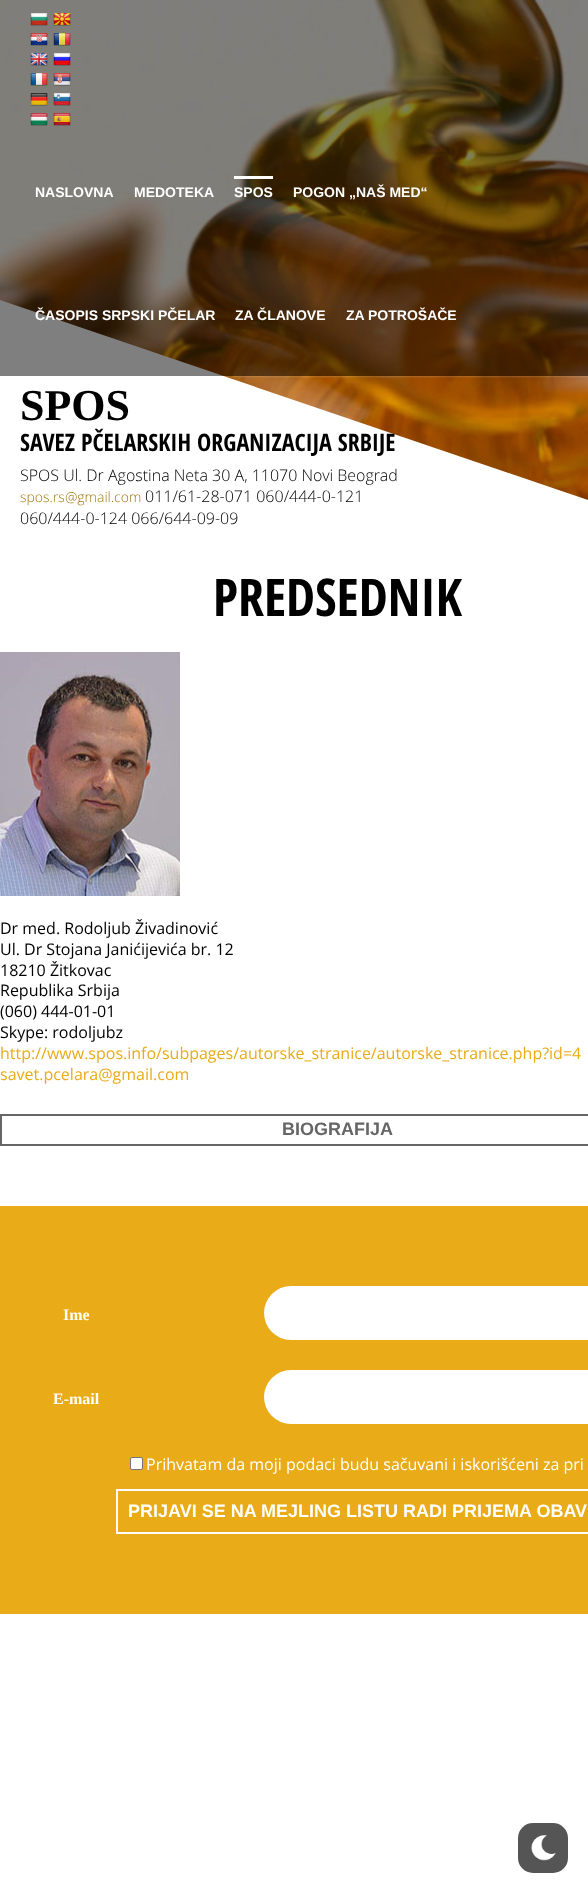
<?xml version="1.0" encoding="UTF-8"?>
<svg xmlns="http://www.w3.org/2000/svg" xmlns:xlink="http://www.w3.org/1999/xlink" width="588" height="1893">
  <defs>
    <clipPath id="clip1"><rect x="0" y="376" width="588" height="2" /></clipPath>
  </defs>
  <rect width="100%" height="100%" fill="#ffffff" />
  <image x="0" y="0" width="588" height="500" xlink:href="image1.png" />
  <path d="M 0 500 v -200 l 588 200 z" fill="#ffffff" />
  <g clip-path="url(#clip1)">
    <rect width="588" height="376" fill="#ffffff" fill-opacity="0.33" filter="blur(1.5px)" />
  </g>
  <rect width="588" height="376" fill="#000000" fill-opacity="0.5" />
  <image x="30" y="13" width="18" height="13" xlink:href="image2.png" />
  <image x="53" y="13" width="18" height="13" xlink:href="image3.png" />
  <image x="30" y="33" width="18" height="13" xlink:href="image4.png" />
  <image x="53" y="33" width="18" height="13" xlink:href="image5.png" />
  <image x="30" y="53" width="18" height="13" xlink:href="image6.png" />
  <image x="53" y="53" width="18" height="13" xlink:href="image7.png" />
  <image x="30" y="73" width="18" height="13" xlink:href="image8.png" />
  <image x="53" y="73" width="18" height="13" xlink:href="image9.png" />
  <image x="30" y="93" width="18" height="13" xlink:href="image10.png" />
  <image x="53" y="93" width="18" height="13" xlink:href="image11.png" />
  <image x="30" y="113" width="18" height="13" xlink:href="image12.png" />
  <image x="53" y="113" width="18" height="13" xlink:href="image13.png" />
  <rect x="234" y="176" width="39" height="3" fill="#ffffff" />
  <image x="0" y="652" width="180" height="244" xlink:href="image14.png" />
  <rect x="1" y="1115" width="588" height="30" fill="none" stroke="#666666" stroke-width="2" />
  <rect y="1206" width="588" height="408" fill="#e9ab17" />
  <rect x="264" y="1286" width="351" height="54" rx="27" fill="#ffffff" />
  <rect x="264" y="1370" width="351" height="54" rx="27" fill="#ffffff" />
  <rect x="130.5" y="1457.5" width="12" height="12" rx="1.5" fill="#ffffff" stroke="#767676" />
  <rect x="117" y="1490" width="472" height="43" fill="none" stroke="#ffffff" stroke-width="2" />
  <rect x="518" y="1823" width="50" height="50" rx="15" fill="#555555" />
  <image x="531" y="1835" width="25" height="26" xlink:href="image15.png" />
  <text x="35" y="197" style="font-family: Liberation Sans; font-size: 14px; font-weight: bold; fill: #ffffff">NASLOVNA</text>
  <text x="134" y="197" style="font-family: Liberation Sans; font-size: 14px; font-weight: bold; fill: #ffffff">MEDOTEKA</text>
  <text x="234" y="197" style="font-family: Liberation Sans; font-size: 14px; font-weight: bold; fill: #ffffff">SPOS</text>
  <text x="293" y="197" style="font-family: Liberation Sans; font-size: 14px; font-weight: bold; fill: #ffffff">POGON „NAŠ MED“</text>
  <text x="35" y="320" style="font-family: Liberation Sans; font-size: 14px; font-weight: bold; fill: #ffffff">ČASOPIS SRPSKI PČELAR</text>
  <text x="235" y="320" style="font-family: Liberation Sans; font-size: 14px; font-weight: bold; fill: #ffffff">ZA ČLANOVE</text>
  <text x="346" y="320" style="font-family: Liberation Sans; font-size: 14px; font-weight: bold; fill: #ffffff">ZA POTROŠAČE</text>
  <text x="20" y="420" style="font-family: Liberation Serif; font-size: 44px; font-weight: bold; fill: #000000">SPOS</text>
  <text x="20" y="451" style="font-family: Open Sans Condensed; font-size: 24px; font-weight: bold; fill: #000000">SAVEZ PČELARSKIH ORGANIZACIJA SRBIJE</text>
  <text x="20" y="481" style="font-family: Open Sans; font-size: 16px; font-weight: 300; fill: #000000">SPOS Ul. Dr Agostina Neta 30 A, 11070 Novi Beograd</text>
  <text x="20" y="502" style="font-family: Open Sans; font-size: 14px; font-weight: 300; fill: #a1750c">spos.rs@gmail.com</text>
  <text x="145" y="502" style="font-family: Open Sans; font-size: 16px; font-weight: 300; fill: #000000">011/61-28-071 060/444-0-121</text>
  <text x="20" y="524" style="font-family: Open Sans; font-size: 16px; font-weight: 300; fill: #000000">060/444-0-124 066/644-09-09</text>
  <text x="213" y="616" style="font-family: Open Sans Condensed; font-size: 52px; font-weight: bold; fill: #000000">PREDSEDNIK</text>
  <text x="0" y="934" style="font-family: Open Sans; font-size: 16px; fill: #000000">Dr med. Rodoljub Živadinović</text>
  <text x="0" y="955" style="font-family: Open Sans; font-size: 16px; fill: #000000">Ul. Dr Stojana Janićijevića br. 12</text>
  <text x="0" y="976" style="font-family: Open Sans; font-size: 16px; fill: #000000">18210 Žitkovac</text>
  <text x="0" y="996" style="font-family: Open Sans; font-size: 16px; fill: #000000">Republika Srbija</text>
  <text x="0" y="1017" style="font-family: Open Sans; font-size: 16px; fill: #000000">(060) 444-01-01</text>
  <text x="0" y="1038" style="font-family: Open Sans; font-size: 16px; fill: #000000">Skype: rodoljubz</text>
  <text x="0" y="1059" style="font-family: Open Sans; font-size: 16px; fill: #e9ab17">http://www.spos.info/subpages/autorske_stranice/autorske_stranice.php?id=4</text>
  <text x="0" y="1080" style="font-family: Open Sans; font-size: 16px; fill: #e9ab17">savet.pcelara@gmail.com</text>
  <text x="282" y="1135" style="font-family: Liberation Sans; font-size: 18px; font-weight: bold; fill: #666666">BIOGRAFIJA</text>
  <text x="63" y="1320" style="font-family: Liberation Serif; font-size: 16px; font-weight: bold; fill: #ffffff">Ime</text>
  <text x="53" y="1404" style="font-family: Liberation Serif; font-size: 16px; font-weight: bold; fill: #ffffff">E-mail</text>
  <text x="146" y="1470" style="font-family: Open Sans; font-size: 16px; fill: #ffffff">Prihvatam da moji podaci budu sačuvani i iskorišćeni za pri</text>
  <text x="128" y="1517" style="font-family: Liberation Sans; font-size: 18px; font-weight: bold; fill: #ffffff">PRIJAVI SE NA MEJLING LISTU RADI PRIJEMA OBAV</text>
</svg>
